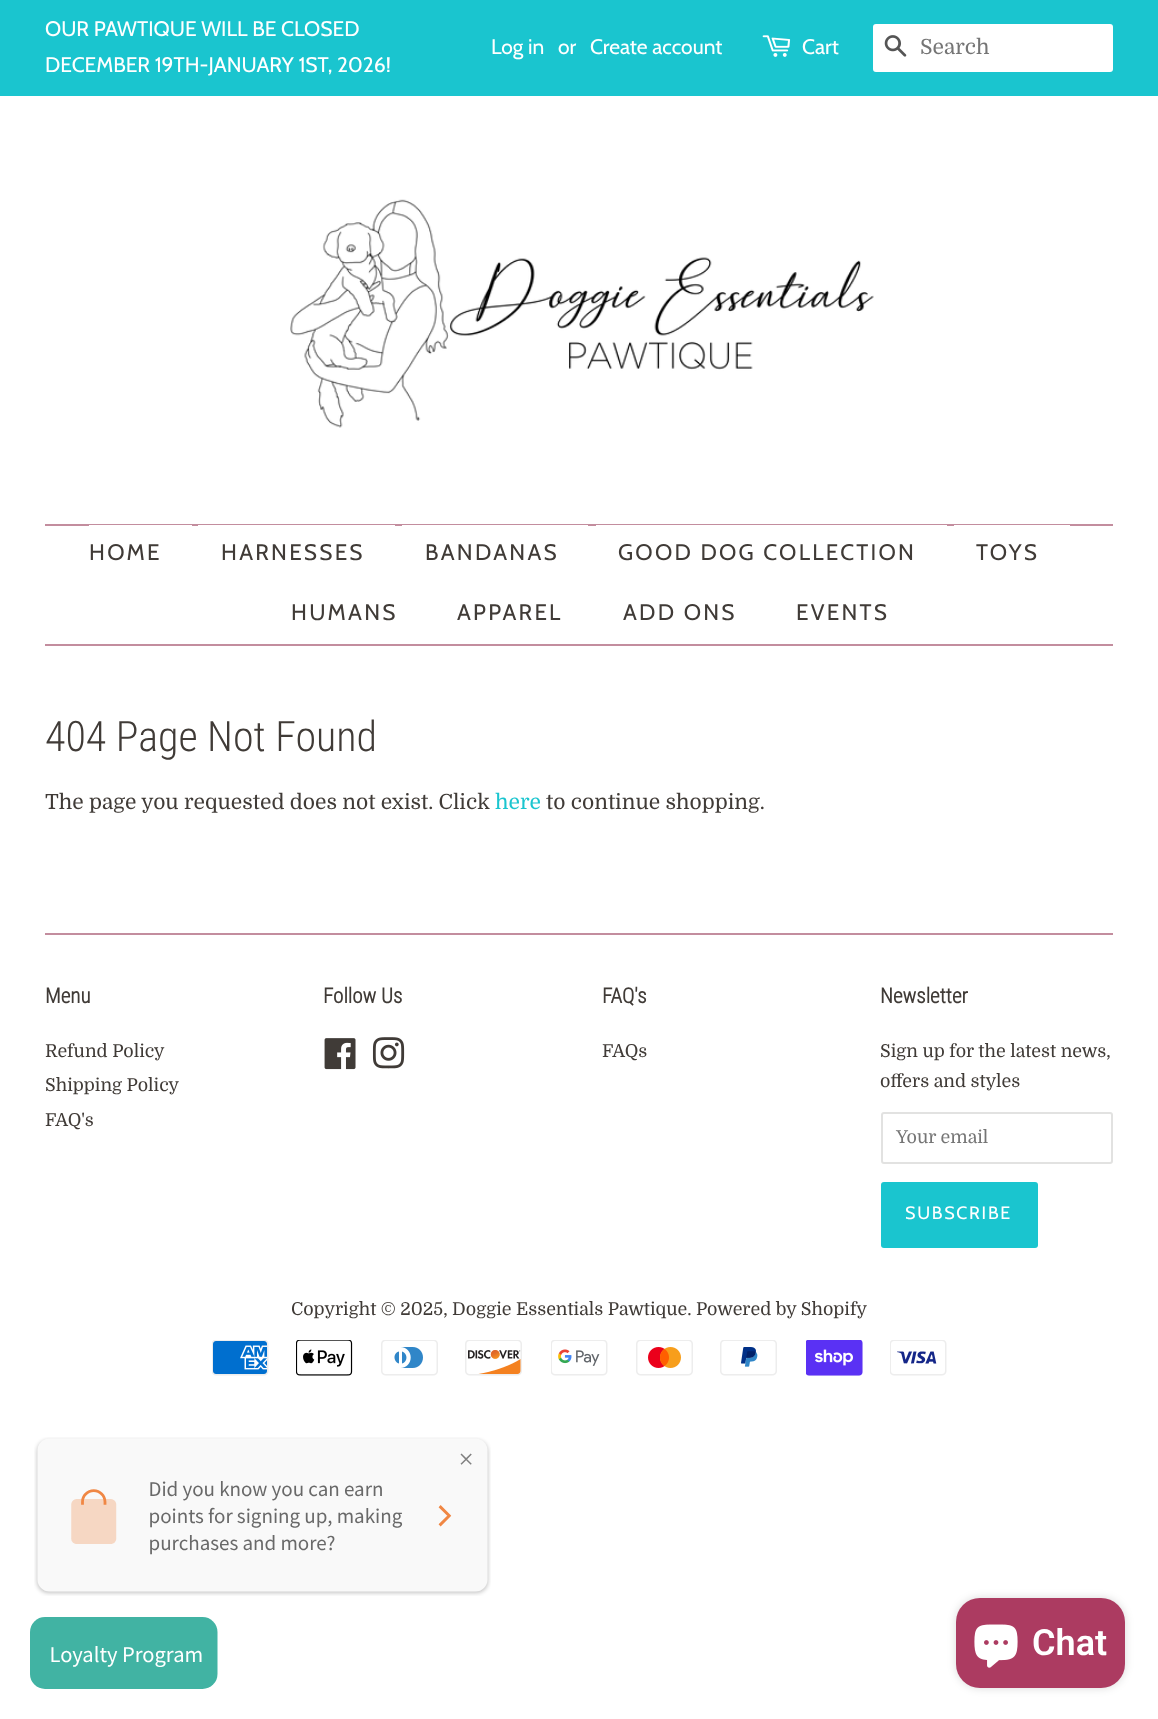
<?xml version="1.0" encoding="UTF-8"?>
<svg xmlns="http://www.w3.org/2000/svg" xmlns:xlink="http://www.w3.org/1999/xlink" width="1158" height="1719">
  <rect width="100%" height="100%" fill="#ffffff" />
  <rect width="1158" height="96" fill="#1ac5cf" />
  <image x="762" y="35" width="29" height="22" xlink:href="image1.png" />
  <rect x="873" y="24" width="240" height="48" rx="3" fill="#ffffff" />
  <image x="884" y="35" width="23" height="22" xlink:href="image2.png" />
  <image x="290" y="199" width="584" height="229" xlink:href="image3.png" />
  <rect x="45" y="524" width="1068" height="2" fill="#c38d9e" />
  <rect x="45" y="644" width="1068" height="2" fill="#c38d9e" />
  <rect x="89" y="525" width="103" height="1" fill="#ffffff" />
  <rect x="198" y="525" width="197" height="1" fill="#ffffff" />
  <rect x="402" y="525" width="186" height="1" fill="#ffffff" />
  <rect x="596" y="525" width="351" height="1" fill="#ffffff" />
  <rect x="954" y="525" width="116" height="1" fill="#ffffff" />
  <rect x="45" y="933" width="1068" height="2" fill="#c38d9e" />
  <image x="324" y="1038" width="32" height="32" xlink:href="image4.png" />
  <image x="372" y="1037" width="33" height="32" xlink:href="image5.png" />
  <rect x="882" y="1113" width="230" height="50" rx="2" fill="none" stroke="#e2e2e1" stroke-width="2" />
  <rect x="881" y="1182" width="157" height="66" rx="3" fill="#1ac5cf" />
  <image x="212" y="1340" width="57" height="36" xlink:href="image6.png" />
  <image x="296" y="1340" width="57" height="36" xlink:href="image7.png" />
  <image x="381" y="1340" width="57" height="36" xlink:href="image8.png" />
  <image x="465" y="1340" width="57" height="36" xlink:href="image9.png" />
  <image x="551" y="1340" width="57" height="36" xlink:href="image10.png" />
  <image x="636" y="1340" width="57" height="36" xlink:href="image11.png" />
  <image x="720" y="1340" width="57" height="36" xlink:href="image12.png" />
  <image x="806" y="1340" width="57" height="36" xlink:href="image13.png" />
  <image x="890" y="1340" width="57" height="36" xlink:href="image14.png" />
  <image x="34" y="1437" width="457" height="159" xlink:href="image15.png" />
  <image x="30" y="1617" width="188" height="72" xlink:href="image16.png" />
  <rect x="956" y="1598" width="169" height="90" rx="24" fill="#000000" fill-opacity="0.15" filter="blur(4px)" />
  <rect x="956" y="1598" width="169" height="90" rx="24" fill="#ac3b61" />
  <image x="974" y="1624" width="44" height="44" xlink:href="image17.png" />
  <text x="45" y="36" style="font-family: Cabin; font-size: 21px; fill: #ffffff">OUR PAWTIQUE WILL BE CLOSED</text>
  <text x="45" y="72" style="font-family: Cabin; font-size: 21px; fill: #ffffff">DECEMBER 19TH-JANUARY 1ST, 2026!</text>
  <text x="491" y="54" style="font-family: Cabin; font-size: 21px; fill: #ffffff">Log in</text>
  <text x="558" y="54" style="font-family: Cabin; font-size: 21px; fill: #ffffff">or</text>
  <text x="590" y="54" style="font-family: Cabin; font-size: 21px; fill: #ffffff">Create account</text>
  <text x="802" y="54" style="font-family: Cabin; font-size: 21px; fill: #ffffff">Cart</text>
  <text x="920" y="54" style="font-family: Domine; font-size: 21px; fill: #757575">Search</text>
  <text x="89" y="560" style="font-family: Cabin; font-size: 22.5px; letter-spacing: 2.25px; fill: #403b37">HOME</text>
  <text x="221" y="560" style="font-family: Cabin; font-size: 22.5px; letter-spacing: 2.25px; fill: #403b37">HARNESSES</text>
  <text x="425" y="560" style="font-family: Cabin; font-size: 22.5px; letter-spacing: 2.25px; fill: #403b37">BANDANAS</text>
  <text x="618" y="560" style="font-family: Cabin; font-size: 22.5px; letter-spacing: 2.25px; fill: #403b37">GOOD DOG COLLECTION</text>
  <text x="976" y="560" style="font-family: Cabin; font-size: 22.5px; letter-spacing: 2.25px; fill: #403b37">TOYS</text>
  <text x="291" y="620" style="font-family: Cabin; font-size: 22.5px; letter-spacing: 2.25px; fill: #403b37">HUMANS</text>
  <text x="457" y="620" style="font-family: Cabin; font-size: 22.5px; letter-spacing: 2.25px; fill: #403b37">APPAREL</text>
  <text x="623" y="620" style="font-family: Cabin; font-size: 22.5px; letter-spacing: 2.25px; fill: #403b37">ADD ONS</text>
  <text x="796" y="620" style="font-family: Cabin; font-size: 22.5px; letter-spacing: 2.25px; fill: #403b37">EVENTS</text>
  <text x="45" y="751" style="font-family: Roboto Condensed; font-size: 42px; font-weight: 300; fill: #403b37">404 Page Not Found</text>
  <text x="45" y="809" style="font-family: Domine; font-size: 21px; fill: #403b37">The page you requested does not exist. Click</text>
  <text x="495" y="809" style="font-family: Domine; font-size: 21px; fill: #1ac5cf">here</text>
  <text x="546" y="809" style="font-family: Domine; font-size: 21px; fill: #403b37">to continue shopping.</text>
  <text x="45" y="1003" style="font-family: Roboto Condensed; font-size: 21px; font-weight: bold; fill: #403b37">Menu</text>
  <text x="45" y="1057" style="font-family: Domine; font-size: 17.85px; fill: #403b37">Refund Policy</text>
  <text x="45" y="1091" style="font-family: Domine; font-size: 17.85px; fill: #403b37">Shipping Policy</text>
  <text x="45" y="1126" style="font-family: Domine; font-size: 17.85px; fill: #403b37">FAQ's</text>
  <text x="323" y="1003" style="font-family: Roboto Condensed; font-size: 21px; font-weight: bold; fill: #403b37">Follow Us</text>
  <text x="602" y="1003" style="font-family: Roboto Condensed; font-size: 21px; font-weight: bold; fill: #403b37">FAQ's</text>
  <text x="602" y="1057" style="font-family: Domine; font-size: 17.85px; fill: #403b37">FAQs</text>
  <text x="880" y="1003" style="font-family: Roboto Condensed; font-size: 21px; font-weight: bold; fill: #403b37">Newsletter</text>
  <text x="880" y="1057" style="font-family: Domine; font-size: 17.85px; fill: #403b37">Sign up for the latest news,</text>
  <text x="880" y="1087" style="font-family: Domine; font-size: 17.85px; fill: #403b37">offers and styles</text>
  <text x="896" y="1143" style="font-family: Domine; font-size: 17.85px; fill: #757575">Your email</text>
  <text x="905" y="1219" style="font-family: Cabin; font-size: 17.85px; letter-spacing: 1.75px; fill: #ffffff">SUBSCRIBE</text>
  <text x="291" y="1315" style="font-family: Domine; font-size: 17.85px; fill: #403b37">Copyright © 2025, Doggie Essentials Pawtique. Powered by Shopify</text>
  <text x="1032" y="1655" style="font-family: Roboto; font-size: 36px; font-weight: 600; fill: #ffffff">Chat</text>
</svg>
